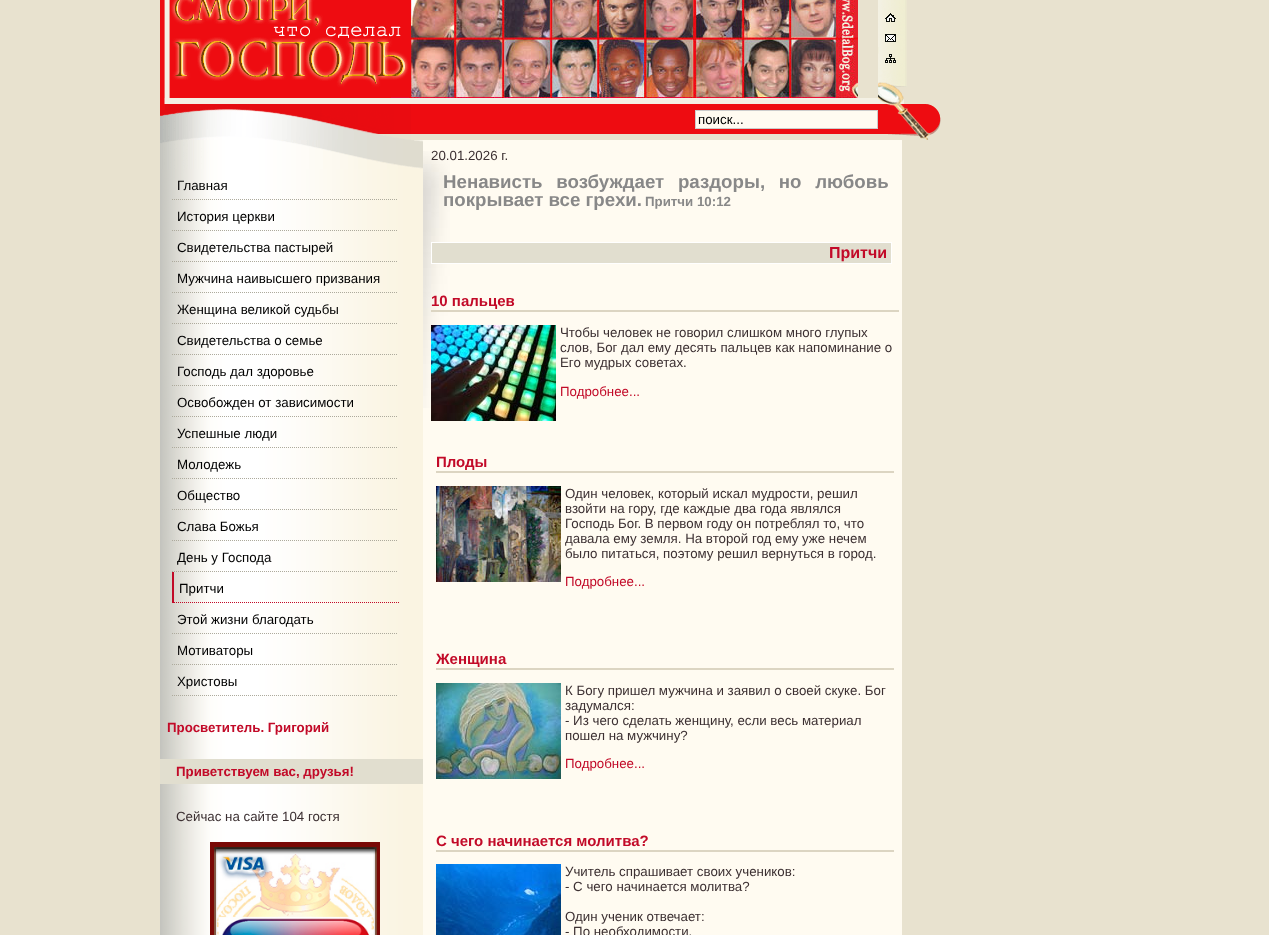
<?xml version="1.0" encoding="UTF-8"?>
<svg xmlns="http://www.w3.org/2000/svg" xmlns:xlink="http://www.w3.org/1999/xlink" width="1269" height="935">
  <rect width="100%" height="100%" fill="#e8e2cf" />
  <image x="160" y="0" width="251" height="98" xlink:href="image1.png" />
  <image x="411" y="0" width="284" height="98" xlink:href="image2.png" />
  <image x="695" y="0" width="163" height="98" xlink:href="image3.png" />
  <image x="878" y="0" width="29" height="98" xlink:href="image4.png" />
  <image x="885" y="13" width="11" height="9" xlink:href="image5.png" />
  <image x="878" y="34" width="18" height="15" xlink:href="image6.png" />
  <image x="878" y="49" width="18" height="14" xlink:href="image7.png" />
  <image x="160" y="98" width="251" height="42" xlink:href="image8.png" />
  <image x="411" y="98" width="284" height="36" xlink:href="image9.png" />
  <image x="695" y="98" width="183" height="36" xlink:href="image10.png" />
  <rect x="695.5" y="110.5" width="182" height="18" fill="#fffbf1" stroke="#cccccc" />
  <image x="878" y="98" width="63" height="42" xlink:href="image11.png" />
  <image x="160" y="140" width="263" height="29" xlink:href="image12.png" />
  <image x="160" y="169" width="263" height="766" xlink:href="image13.png" />
  <path d="M 172 199.5 h 225" fill="none" stroke="#adaa9c" stroke-dasharray="1 1" />
  <path d="M 172 230.5 h 225" fill="none" stroke="#adaa9c" stroke-dasharray="1 1" />
  <path d="M 172 261.5 h 225" fill="none" stroke="#adaa9c" stroke-dasharray="1 1" />
  <path d="M 172 292.5 h 225" fill="none" stroke="#adaa9c" stroke-dasharray="1 1" />
  <path d="M 172 323.5 h 225" fill="none" stroke="#adaa9c" stroke-dasharray="1 1" />
  <path d="M 172 354.5 h 225" fill="none" stroke="#adaa9c" stroke-dasharray="1 1" />
  <path d="M 172 385.5 h 225" fill="none" stroke="#adaa9c" stroke-dasharray="1 1" />
  <path d="M 172 416.5 h 225" fill="none" stroke="#adaa9c" stroke-dasharray="1 1" />
  <path d="M 172 447.5 h 225" fill="none" stroke="#adaa9c" stroke-dasharray="1 1" />
  <path d="M 172 478.5 h 225" fill="none" stroke="#adaa9c" stroke-dasharray="1 1" />
  <path d="M 172 509.5 h 225" fill="none" stroke="#adaa9c" stroke-dasharray="1 1" />
  <path d="M 172 540.5 h 225" fill="none" stroke="#adaa9c" stroke-dasharray="1 1" />
  <path d="M 172 571.5 h 225" fill="none" stroke="#adaa9c" stroke-dasharray="1 1" />
  <path d="M 172 602.5 h 227" fill="none" stroke="#c20a28" stroke-dasharray="1 1" />
  <rect x="172" y="572" width="2" height="31" fill="#c20a28" />
  <path d="M 172 633.5 h 225" fill="none" stroke="#adaa9c" stroke-dasharray="1 1" />
  <path d="M 172 664.5 h 225" fill="none" stroke="#adaa9c" stroke-dasharray="1 1" />
  <path d="M 172 695.5 h 225" fill="none" stroke="#adaa9c" stroke-dasharray="1 1" />
  <rect x="160" y="759" width="263" height="25" fill="#e1decf" />
  <image x="210" y="842" width="170" height="93" xlink:href="image14.png" />
  <rect x="423" y="140" width="479" height="795" fill="#fffbf1" />
  <image x="423" y="151" width="27" height="257" xlink:href="image15.png" />
  <rect x="431.5" y="242.5" width="460" height="21" fill="#e1decf" stroke="#ffffff" />
  <rect x="431" y="310" width="468" height="2" fill="#dcd5c2" />
  <image x="431" y="325" width="125" height="96" xlink:href="image16.png" />
  <rect x="436" y="471" width="458" height="2" fill="#dcd5c2" />
  <image x="436" y="486" width="125" height="96" xlink:href="image17.png" />
  <rect x="436" y="668" width="458" height="2" fill="#dcd5c2" />
  <image x="436" y="683" width="125" height="96" xlink:href="image18.png" />
  <rect x="436" y="850" width="458" height="2" fill="#dcd5c2" />
  <image x="436" y="864" width="125" height="71" xlink:href="image19.png" />
  <text x="698" y="124" style="font-family: Liberation Sans; font-size: 13.3px; fill: #000000">поиск...</text>
  <text x="177" y="190" style="font-family: Liberation Sans; font-size: 13.3px; fill: #000000">Главная</text>
  <text x="177" y="221" style="font-family: Liberation Sans; font-size: 13.3px; fill: #000000">История церкви</text>
  <text x="177" y="252" style="font-family: Liberation Sans; font-size: 13.3px; fill: #000000">Свидетельства пастырей</text>
  <text x="177" y="283" style="font-family: Liberation Sans; font-size: 13.3px; fill: #000000">Мужчина наивысшего призвания</text>
  <text x="177" y="314" style="font-family: Liberation Sans; font-size: 13.3px; fill: #000000">Женщина великой судьбы</text>
  <text x="177" y="345" style="font-family: Liberation Sans; font-size: 13.3px; fill: #000000">Свидетельства о семье</text>
  <text x="177" y="376" style="font-family: Liberation Sans; font-size: 13.3px; fill: #000000">Господь дал здоровье</text>
  <text x="177" y="407" style="font-family: Liberation Sans; font-size: 13.3px; fill: #000000">Освобожден от зависимости</text>
  <text x="177" y="438" style="font-family: Liberation Sans; font-size: 13.3px; fill: #000000">Успешные люди</text>
  <text x="177" y="469" style="font-family: Liberation Sans; font-size: 13.3px; fill: #000000">Молодежь</text>
  <text x="177" y="500" style="font-family: Liberation Sans; font-size: 13.3px; fill: #000000">Общество</text>
  <text x="177" y="531" style="font-family: Liberation Sans; font-size: 13.3px; fill: #000000">Слава Божья</text>
  <text x="177" y="562" style="font-family: Liberation Sans; font-size: 13.3px; fill: #000000">День у Господа</text>
  <text x="179" y="593" style="font-family: Liberation Sans; font-size: 13.3px; fill: #000000">Притчи</text>
  <text x="177" y="624" style="font-family: Liberation Sans; font-size: 13.3px; fill: #000000">Этой жизни благодать</text>
  <text x="177" y="655" style="font-family: Liberation Sans; font-size: 13.3px; fill: #000000">Мотиваторы</text>
  <text x="177" y="686" style="font-family: Liberation Sans; font-size: 13.3px; fill: #000000">Христовы</text>
  <text x="167" y="732" style="font-family: Liberation Sans; font-size: 13.3px; font-weight: bold; fill: #c20a28">Просветитель. Григорий</text>
  <text x="176" y="776" style="font-family: Liberation Sans; font-size: 13.3px; font-weight: bold; fill: #c20a28">Приветствуем вас, друзья!</text>
  <text x="176" y="821" style="font-family: Liberation Sans; font-size: 13.3px; fill: #3c3032">Сейчас на сайте 104 гостя</text>
  <text x="431" y="160" style="font-family: Liberation Sans; font-size: 13.3px; fill: #3c3032">20.01.2026 г.</text>
  <text x="443" y="188" word-spacing="8.5" style="font-family: Liberation Sans; font-size: 18.7px; font-weight: bold; fill: #888888">Ненависть возбуждает раздоры, но любовь</text>
  <text x="443" y="206" style="font-family: Liberation Sans; font-size: 18.7px; font-weight: bold; fill: #888888">покрывает все грехи.</text>
  <text x="645" y="206" style="font-family: Liberation Sans; font-size: 13.3px; font-weight: bold; fill: #888888">Притчи 10:12</text>
  <text x="829" y="258" style="font-family: Liberation Sans; font-size: 16px; font-weight: bold; fill: #c20a28">Притчи</text>
  <text x="431" y="306" style="font-family: Liberation Sans; font-size: 15px; font-weight: bold; fill: #c20a28">10 пальцев</text>
  <text x="560" y="337" style="font-family: Liberation Sans; font-size: 13.3px; fill: #3c3032">Чтобы человек не говорил слишком много глупых</text>
  <text x="560" y="352" style="font-family: Liberation Sans; font-size: 13.3px; fill: #3c3032">слов, Бог дал ему десять пальцев как напоминание о</text>
  <text x="560" y="367" style="font-family: Liberation Sans; font-size: 13.3px; fill: #3c3032">Его мудрых советах.</text>
  <text x="560" y="396" style="font-family: Liberation Sans; font-size: 13.3px; fill: #c20a28">Подробнее...</text>
  <text x="436" y="467" style="font-family: Liberation Sans; font-size: 15px; font-weight: bold; fill: #c20a28">Плоды</text>
  <text x="565" y="498" style="font-family: Liberation Sans; font-size: 13.3px; fill: #3c3032">Один человек, который искал мудрости, решил</text>
  <text x="565" y="513" style="font-family: Liberation Sans; font-size: 13.3px; fill: #3c3032">взойти на гору, где каждые два года являлся</text>
  <text x="565" y="528" style="font-family: Liberation Sans; font-size: 13.3px; fill: #3c3032">Господь Бог. В первом году он потреблял то, что</text>
  <text x="565" y="543" style="font-family: Liberation Sans; font-size: 13.3px; fill: #3c3032">давала ему земля. На второй год ему уже нечем</text>
  <text x="565" y="558" style="font-family: Liberation Sans; font-size: 13.3px; fill: #3c3032">было питаться, поэтому решил вернуться в город.</text>
  <text x="565" y="586" style="font-family: Liberation Sans; font-size: 13.3px; fill: #c20a28">Подробнее...</text>
  <text x="436" y="664" style="font-family: Liberation Sans; font-size: 15px; font-weight: bold; fill: #c20a28">Женщина</text>
  <text x="565" y="695" style="font-family: Liberation Sans; font-size: 13.3px; fill: #3c3032">К Богу пришел мужчина и заявил о своей скуке. Бог</text>
  <text x="565" y="710" style="font-family: Liberation Sans; font-size: 13.3px; fill: #3c3032">задумался:</text>
  <text x="565" y="725" style="font-family: Liberation Sans; font-size: 13.3px; fill: #3c3032">- Из чего сделать женщину, если весь материал</text>
  <text x="565" y="740" style="font-family: Liberation Sans; font-size: 13.3px; fill: #3c3032">пошел на мужчину?</text>
  <text x="565" y="768" style="font-family: Liberation Sans; font-size: 13.3px; fill: #c20a28">Подробнее...</text>
  <text x="436" y="846" style="font-family: Liberation Sans; font-size: 15px; font-weight: bold; fill: #c20a28">С чего начинается молитва?</text>
  <text x="565" y="876" style="font-family: Liberation Sans; font-size: 13.3px; fill: #3c3032">Учитель спрашивает своих учеников:</text>
  <text x="565" y="891" style="font-family: Liberation Sans; font-size: 13.3px; fill: #3c3032">- С чего начинается молитва?</text>
  <text x="565" y="921" style="font-family: Liberation Sans; font-size: 13.3px; fill: #3c3032">Один ученик отвечает:</text>
  <text x="565" y="936" style="font-family: Liberation Sans; font-size: 13.3px; fill: #3c3032">- По необходимости.</text>
</svg>
